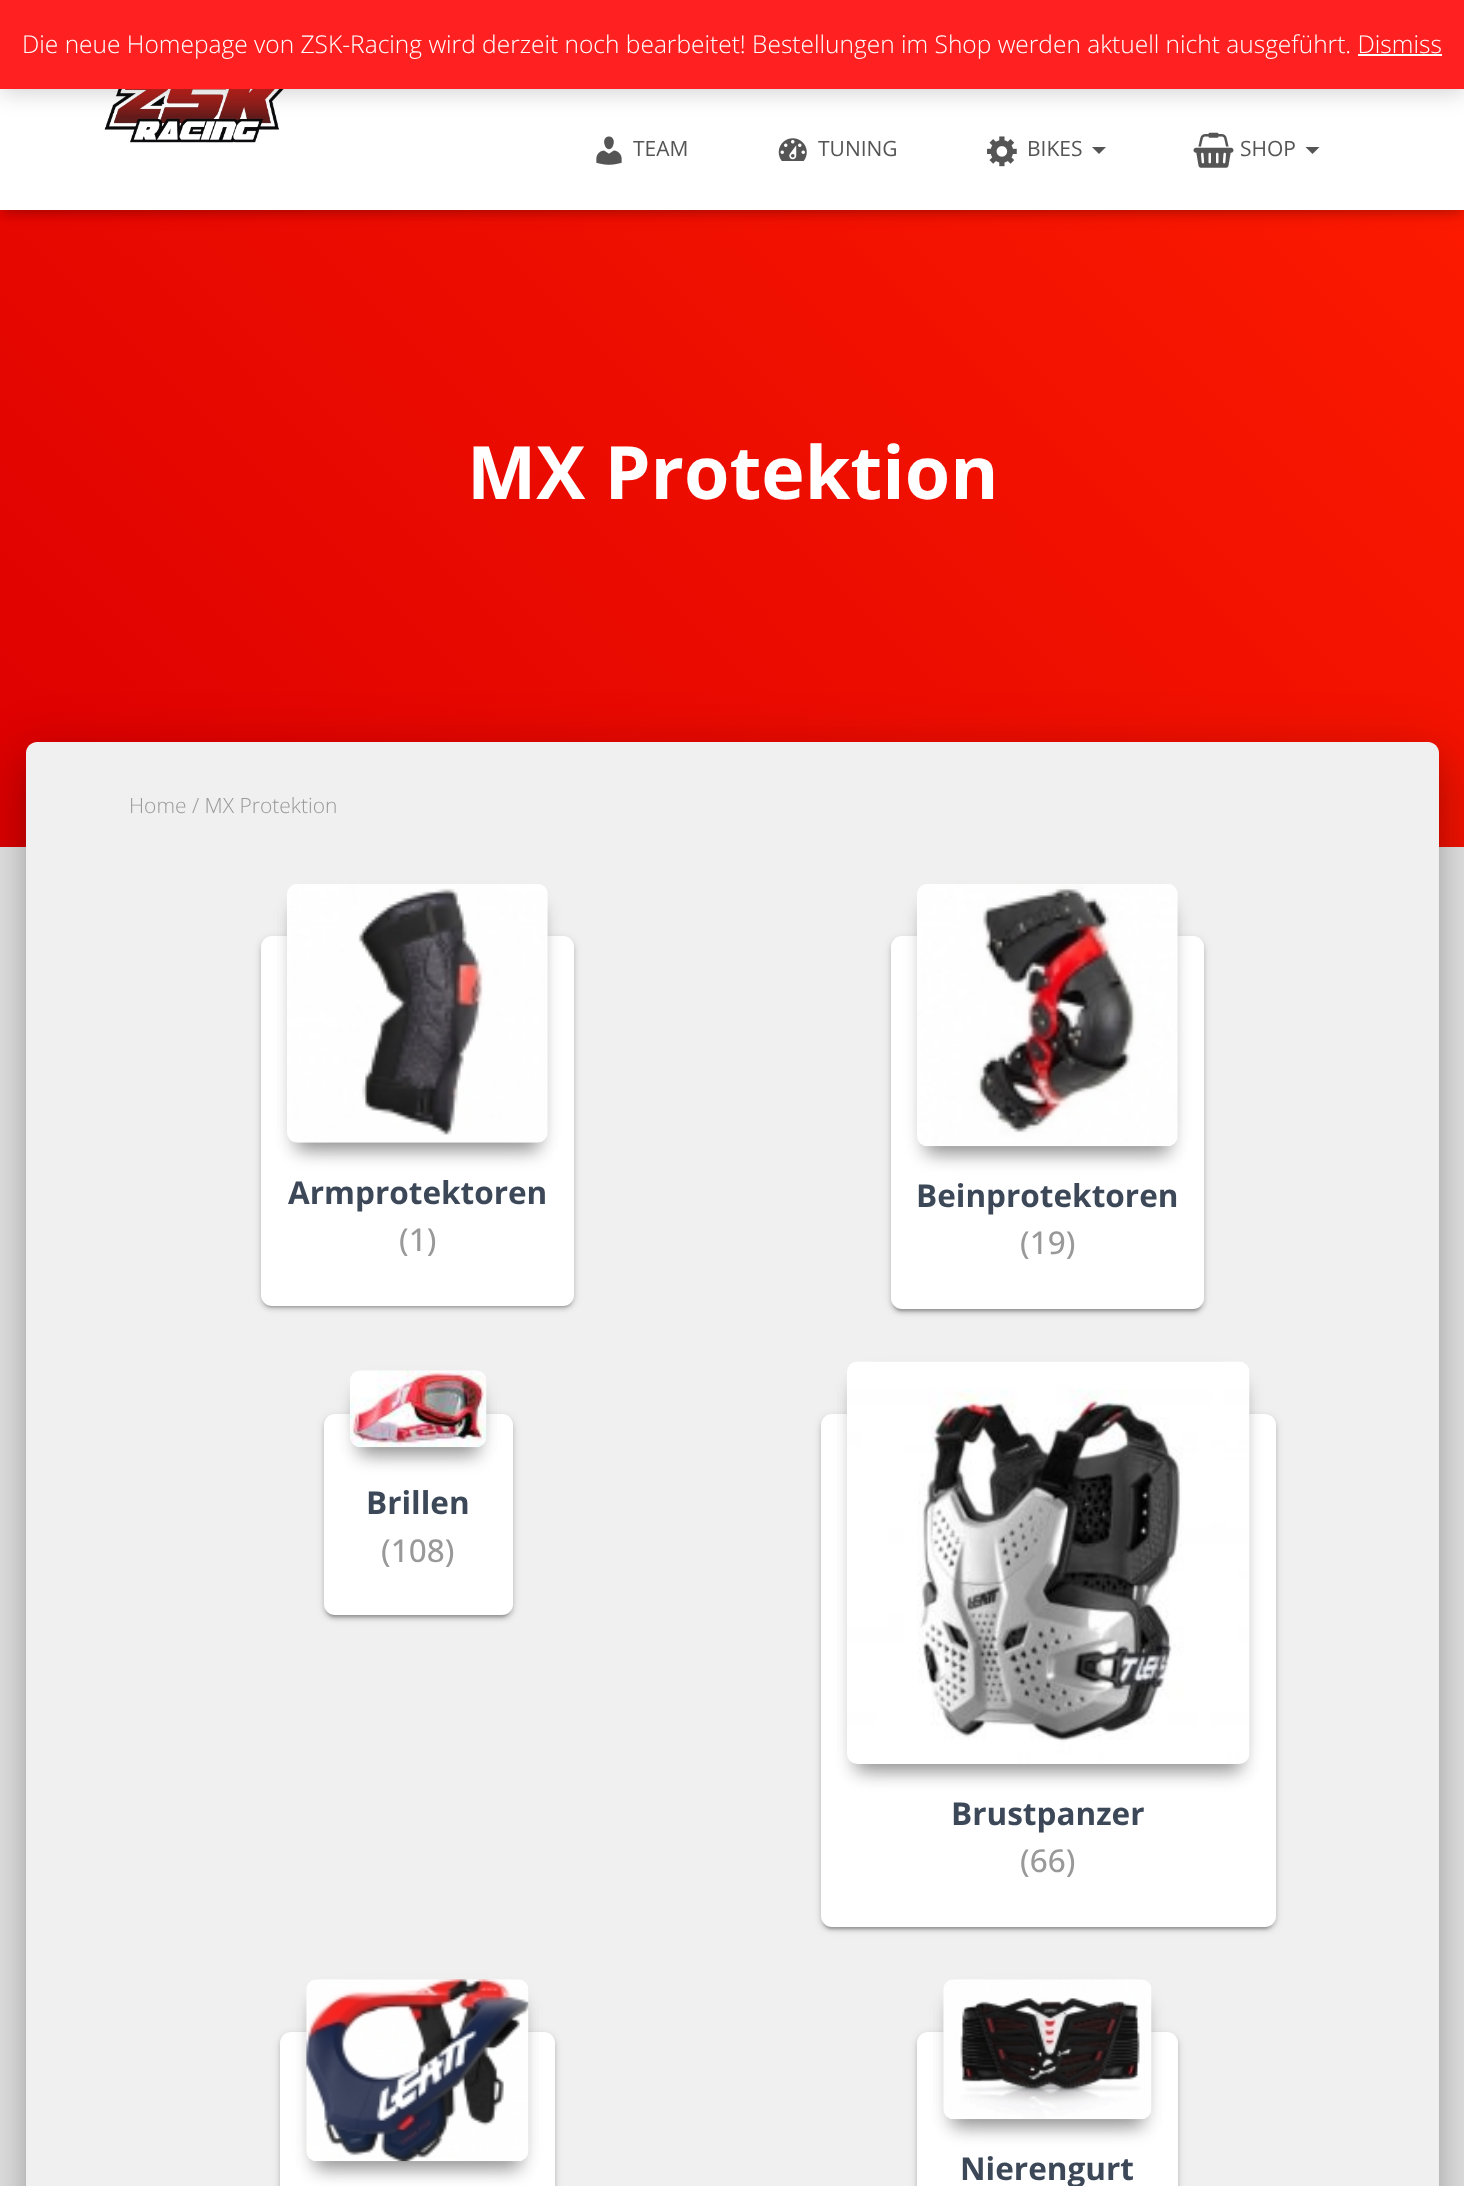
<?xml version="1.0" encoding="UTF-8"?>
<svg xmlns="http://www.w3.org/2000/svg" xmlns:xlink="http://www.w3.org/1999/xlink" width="1464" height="2186">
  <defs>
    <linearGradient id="g1" gradientUnits="userSpaceOnUse" x1="154" y1="1001" x2="1310" y2="-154"><stop offset="0" stop-color="#dd0000" /><stop offset="1" stop-color="#ff1c00" /></linearGradient>
  </defs>
  <rect width="100%" height="100%" fill="#e5e5e5" />
  <rect y="210" width="1464" height="637" fill="url(#g1)" />
  <rect x="4" y="11" width="1457" height="203" fill="#000000" fill-opacity="0.1" filter="blur(4.5px)" />
  <rect y="2" width="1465" height="210" fill="#000000" fill-opacity="0.12" filter="blur(9px)" />
  <rect x="11" y="12" width="1443" height="189" fill="#000000" fill-opacity="0.42" filter="blur(9px)" />
  <rect y="89" width="1464" height="121" fill="#ffffff" />
  <image x="104" y="89" width="180" height="54" xlink:href="image1.png" />
  <rect y="2" width="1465" height="89" fill="#000000" fill-opacity="0.2" filter="blur(12px)" />
  <rect width="1464" height="89" fill="#ff2121" />
  <rect x="1358" y="54" width="84" height="2" fill="#ffffff" />
  <image x="596" y="136" width="26" height="29" xlink:href="image2.png" />
  <image x="778" y="138" width="29" height="23" xlink:href="image3.png" />
  <image x="987" y="136" width="30" height="31" xlink:href="image4.png" />
  <path d="M 1092 147 h 14 l -7 7 z" fill="#555555" />
  <image x="1193" y="132" width="41" height="36" xlink:href="image5.png" />
  <path d="M 1305.5 147 h 14 l -7 7 z" fill="#555555" />
  <rect x="35" y="765" width="1395" height="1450" rx="2" fill="#000000" fill-opacity="0.2" filter="blur(9px)" />
  <rect x="18" y="744" width="1429" height="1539" rx="19" fill="#000000" fill-opacity="0.12" filter="blur(26px)" />
  <rect x="23" y="767" width="1419" height="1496" rx="14" fill="#000000" fill-opacity="0.14" filter="blur(21px)" />
  <path d="M 37 742 h 1391 c 6 0 11 5 11 11 v 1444 h -1413 v -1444 c 0 -6 5 -11 11 -11 z" fill="#f0f0f0" />
  <rect x="261" y="938" width="313" height="369" rx="11" fill="#000000" fill-opacity="0.12" filter="blur(4.5px)" />
  <rect x="264" y="945" width="307" height="362" rx="7" fill="#000000" fill-opacity="0.2" filter="blur(1px)" />
  <rect x="261" y="940" width="313" height="369" rx="11" fill="#000000" fill-opacity="0.14" filter="blur(2px)" />
  <rect x="261" y="936" width="313" height="370" rx="11" fill="#ffffff" />
  <rect x="296" y="910" width="243" height="242" rx="2" fill="#000000" fill-opacity="0.2" filter="blur(9px)" />
  <rect x="296" y="907" width="243" height="241" rx="2" fill="#000000" fill-opacity="0.2" filter="blur(9px)" />
  <rect x="301" y="907" width="233" height="231" fill="#000000" fill-opacity="0.24" filter="blur(13px)" />
  <image x="287" y="884" width="261" height="259" xlink:href="image6.png" />
  <rect x="891" y="938" width="313" height="373" rx="11" fill="#000000" fill-opacity="0.12" filter="blur(4.5px)" />
  <rect x="894" y="945" width="307" height="366" rx="7" fill="#000000" fill-opacity="0.2" filter="blur(1px)" />
  <rect x="891" y="940" width="313" height="373" rx="11" fill="#000000" fill-opacity="0.14" filter="blur(2px)" />
  <rect x="891" y="936" width="313" height="373" rx="11" fill="#ffffff" />
  <rect x="926" y="910" width="243" height="245" rx="2" fill="#000000" fill-opacity="0.2" filter="blur(9px)" />
  <rect x="926" y="907" width="243" height="245" rx="2" fill="#000000" fill-opacity="0.2" filter="blur(9px)" />
  <rect x="931" y="907" width="233" height="234" fill="#000000" fill-opacity="0.24" filter="blur(13px)" />
  <image x="917" y="884" width="261" height="263" xlink:href="image7.png" />
  <rect x="324" y="1416" width="189" height="201" rx="11" fill="#000000" fill-opacity="0.12" filter="blur(4.5px)" />
  <rect x="327" y="1423" width="182" height="194" rx="7" fill="#000000" fill-opacity="0.2" filter="blur(1px)" />
  <rect x="324" y="1418" width="189" height="201" rx="11" fill="#000000" fill-opacity="0.14" filter="blur(2px)" />
  <rect x="324" y="1414" width="189" height="201" rx="11" fill="#ffffff" />
  <rect x="359" y="1397" width="119" height="59" rx="2" fill="#000000" fill-opacity="0.2" filter="blur(9px)" />
  <rect x="359" y="1393" width="119" height="60" rx="2" fill="#000000" fill-opacity="0.2" filter="blur(9px)" />
  <rect x="364" y="1393" width="109" height="49" fill="#000000" fill-opacity="0.24" filter="blur(13px)" />
  <image x="350" y="1370" width="137" height="78" xlink:href="image8.png" />
  <rect x="821" y="1416" width="455" height="513" rx="11" fill="#000000" fill-opacity="0.12" filter="blur(4.5px)" />
  <rect x="824" y="1423" width="448" height="506" rx="7" fill="#000000" fill-opacity="0.2" filter="blur(1px)" />
  <rect x="821" y="1418" width="455" height="512" rx="11" fill="#000000" fill-opacity="0.14" filter="blur(2px)" />
  <rect x="821" y="1414" width="455" height="513" rx="11" fill="#ffffff" />
  <rect x="856" y="1388" width="385" height="385" rx="2" fill="#000000" fill-opacity="0.2" filter="blur(9px)" />
  <rect x="856" y="1384" width="385" height="385" rx="2" fill="#000000" fill-opacity="0.2" filter="blur(9px)" />
  <rect x="861" y="1384" width="375" height="375" fill="#000000" fill-opacity="0.24" filter="blur(13px)" />
  <image x="847" y="1361" width="403" height="403" xlink:href="image9.png" />
  <rect x="280" y="2034" width="275" height="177" rx="11" fill="#000000" fill-opacity="0.12" filter="blur(4.5px)" />
  <rect x="280" y="2035" width="275" height="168" rx="11" fill="#000000" fill-opacity="0.14" filter="blur(2px)" />
  <rect x="280" y="2032" width="275" height="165" rx="11" fill="#ffffff" />
  <rect x="315" y="2006" width="205" height="164" rx="2" fill="#000000" fill-opacity="0.2" filter="blur(9px)" />
  <rect x="315" y="2002" width="205" height="165" rx="2" fill="#000000" fill-opacity="0.2" filter="blur(9px)" />
  <rect x="320" y="2002" width="195" height="154" fill="#000000" fill-opacity="0.24" filter="blur(13px)" />
  <image x="306" y="1979" width="223" height="183" xlink:href="image10.png" />
  <rect x="917" y="2034" width="261" height="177" rx="11" fill="#000000" fill-opacity="0.12" filter="blur(4.5px)" />
  <rect x="917" y="2035" width="261" height="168" rx="11" fill="#000000" fill-opacity="0.14" filter="blur(2px)" />
  <rect x="917" y="2032" width="261" height="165" rx="11" fill="#ffffff" />
  <rect x="952" y="2006" width="191" height="122" rx="2" fill="#000000" fill-opacity="0.2" filter="blur(9px)" />
  <rect x="952" y="2002" width="191" height="123" rx="2" fill="#000000" fill-opacity="0.2" filter="blur(9px)" />
  <rect x="957" y="2002" width="181" height="112" fill="#000000" fill-opacity="0.24" filter="blur(13px)" />
  <image x="943" y="1979" width="209" height="141" xlink:href="image11.png" />
  <text x="22" y="53" style="font-family: Open Sans; font-size: 24.5px; font-weight: 300; fill: #ffffff">Die neue Homepage von ZSK-Racing wird derzeit noch bearbeitet! Bestellungen im Shop werden aktuell nicht ausgeführt. Dismiss</text>
  <text x="633" y="156" style="font-family: Open Sans; font-size: 21px; fill: #555555">TEAM</text>
  <text x="818" y="156" style="font-family: Open Sans; font-size: 21px; fill: #555555">TUNING</text>
  <text x="1027" y="156" style="font-family: Open Sans; font-size: 21px; fill: #555555">BIKES</text>
  <text x="1240" y="156" style="font-family: Open Sans; font-size: 21px; fill: #555555">SHOP</text>
  <text x="467" y="499" style="font-family: Open Sans; font-size: 73.5px; font-weight: bold; fill: #ffffff">MX Protektion</text>
  <text x="129" y="813" style="font-family: Open Sans; font-size: 21px; font-weight: 300; fill: #999999">Home / MX Protektion</text>
  <text x="288" y="1204" style="font-family: Open Sans; font-size: 31.5px; font-weight: bold; fill: #3c4858">Armprotektoren</text>
  <text x="399" y="1251" style="font-family: Open Sans; font-size: 31.5px; font-weight: 500; fill: #999999">(1)</text>
  <text x="916" y="1207" style="font-family: Open Sans; font-size: 31.5px; font-weight: bold; fill: #3c4858">Beinprotektoren</text>
  <text x="1020" y="1254" style="font-family: Open Sans; font-size: 31.5px; font-weight: 500; fill: #999999">(19)</text>
  <text x="366" y="1514" style="font-family: Open Sans; font-size: 31.5px; font-weight: bold; fill: #3c4858">Brillen</text>
  <text x="381" y="1562" style="font-family: Open Sans; font-size: 31.5px; font-weight: 500; fill: #999999">(108)</text>
  <text x="951" y="1825" style="font-family: Open Sans; font-size: 31.5px; font-weight: bold; fill: #3c4858">Brustpanzer</text>
  <text x="1020" y="1872" style="font-family: Open Sans; font-size: 31.5px; font-weight: 500; fill: #999999">(66)</text>
  <text x="960" y="2180" style="font-family: Open Sans; font-size: 31.5px; font-weight: bold; fill: #3c4858">Nierengurt</text>
</svg>
